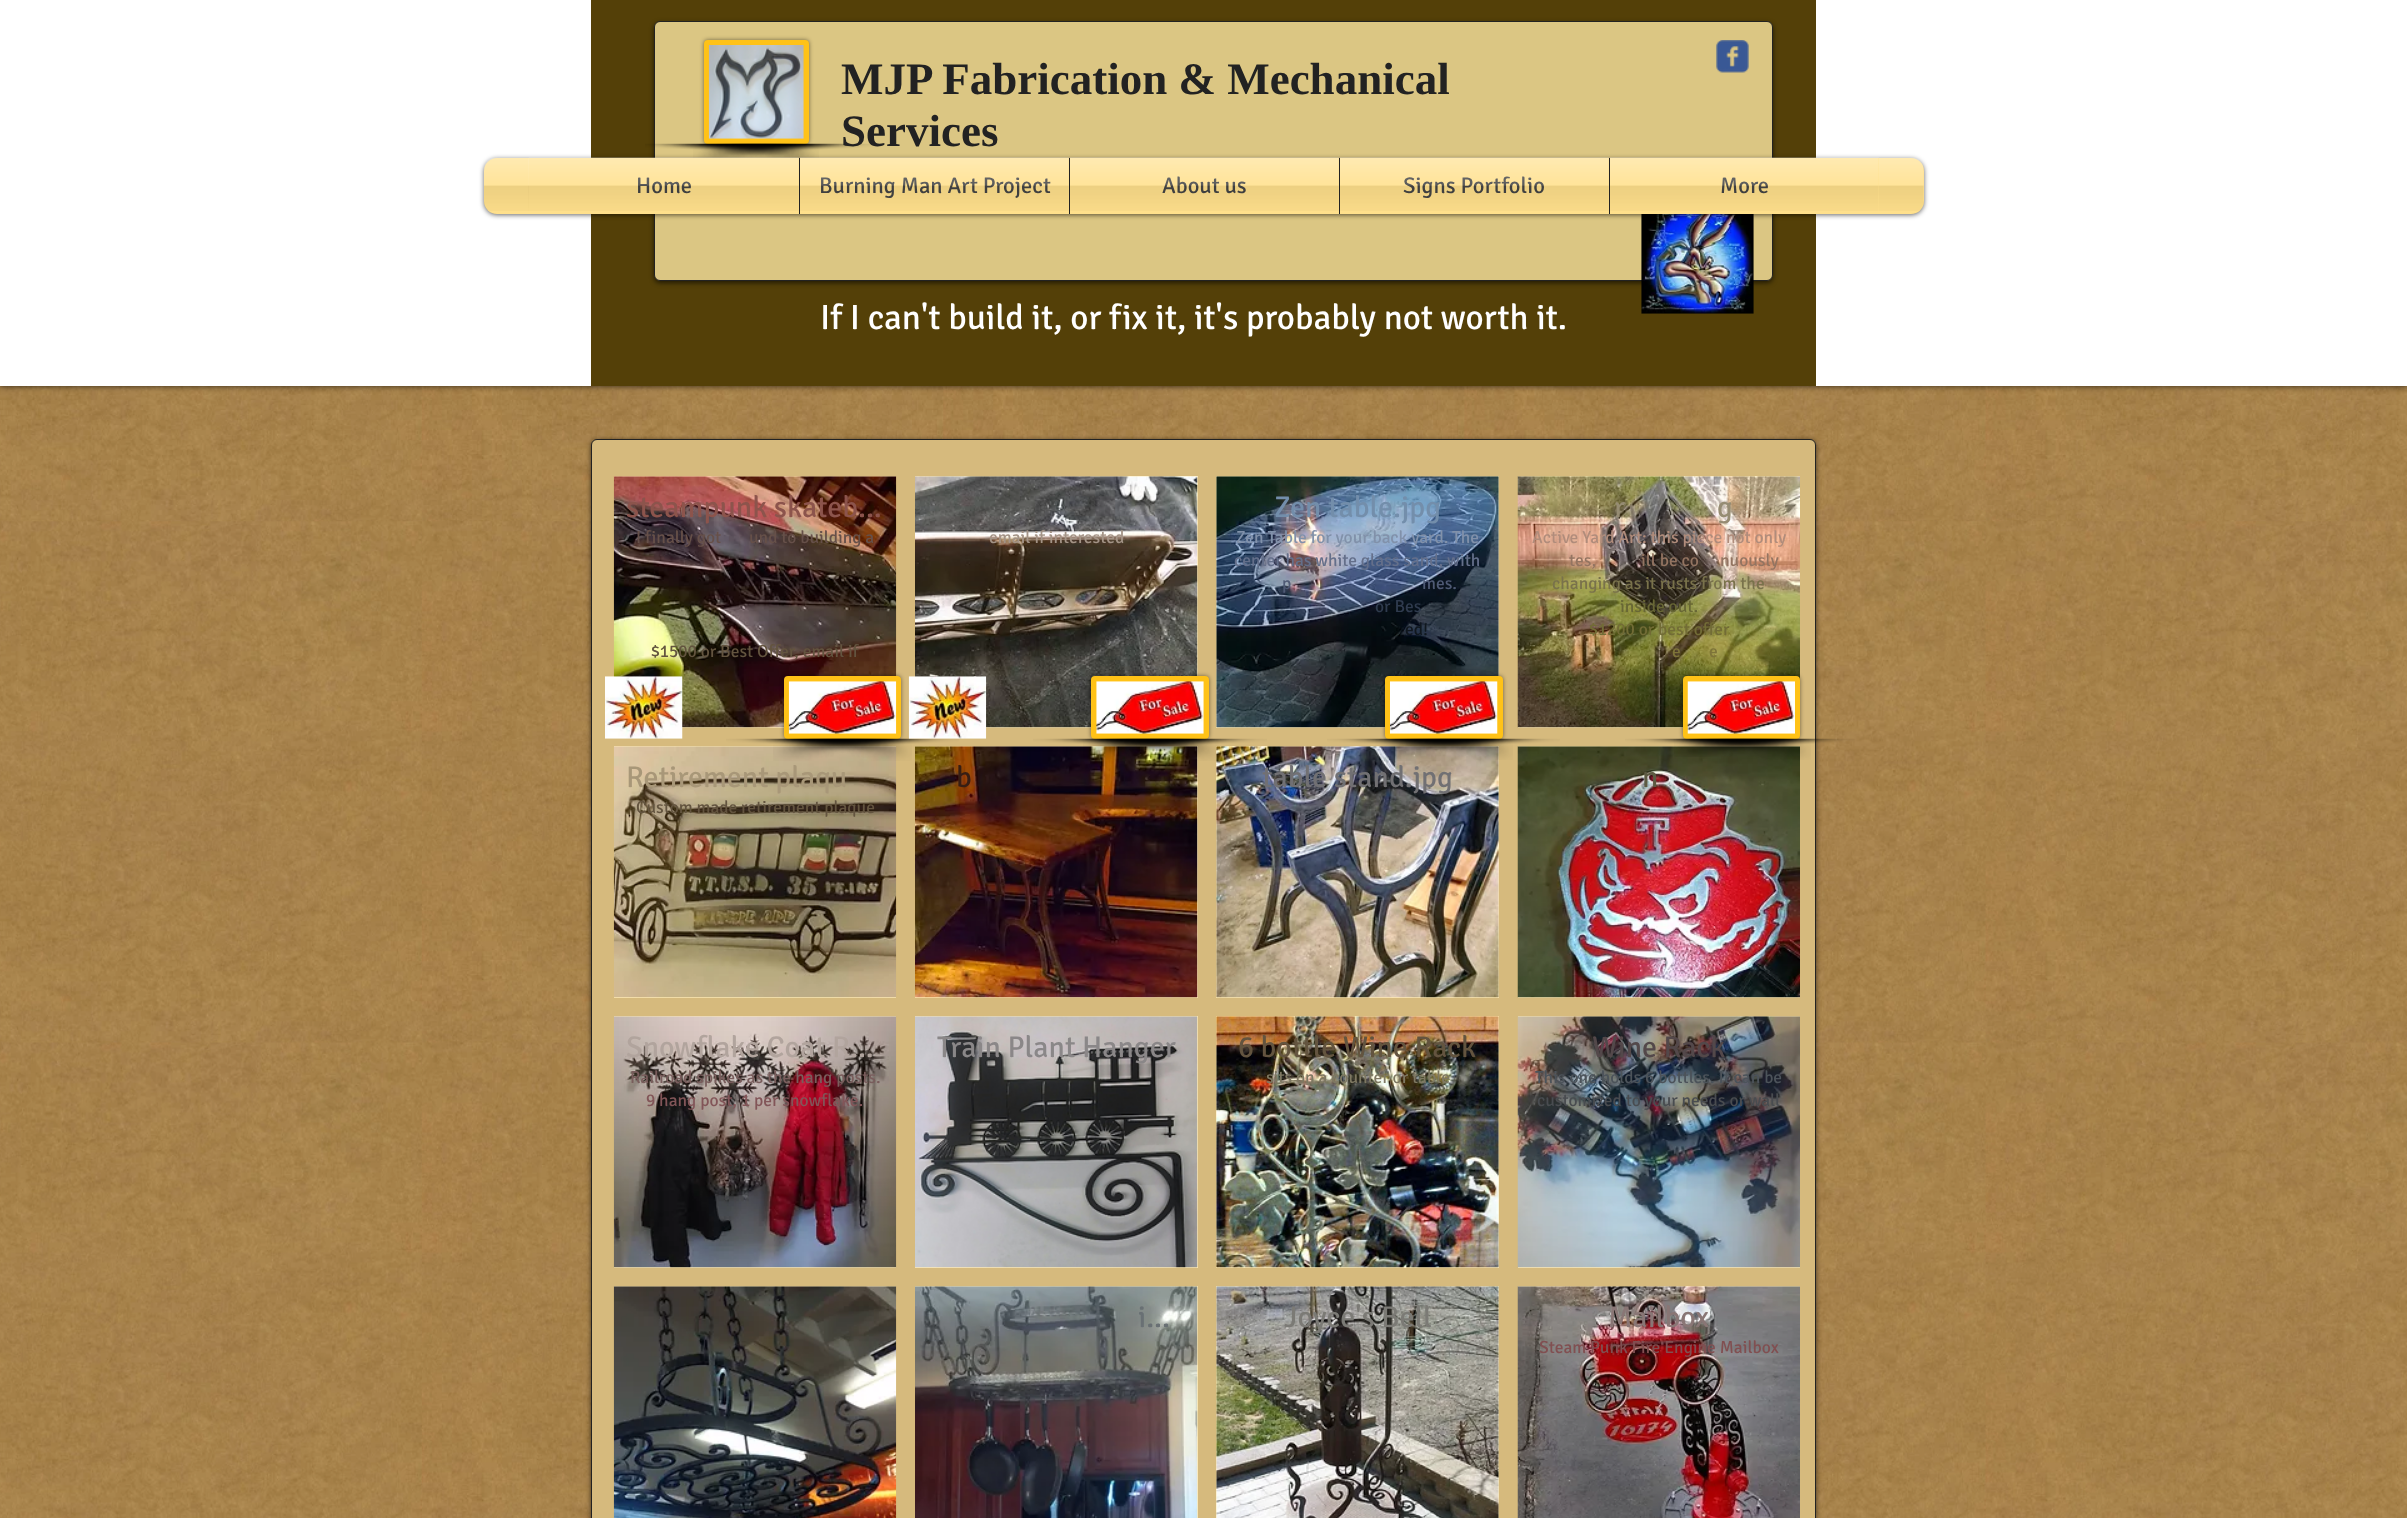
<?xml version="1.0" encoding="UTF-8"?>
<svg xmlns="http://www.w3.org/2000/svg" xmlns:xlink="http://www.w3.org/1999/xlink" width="2407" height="1518">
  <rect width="100%" height="100%" fill="#ffffff" />
  <image x="0" y="386" width="2407" height="1132" xlink:href="image42.png" />
  <rect width="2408" height="386" fill="#000000" fill-opacity="0.7" filter="blur(3px)" />
  <rect width="2407" height="386" fill="#ffffff" />
  <rect x="591" width="1225" height="386" fill="#544008" />
  <rect x="654" y="23" width="1119" height="260" rx="6" fill="#000000" fill-opacity="0.6" filter="blur(2.5px)" />
  <rect x="654.5" y="21.5" width="1118" height="259" rx="5.5" fill="#dbc683" stroke="#222222" />
  <rect x="704" y="40" width="105" height="104" rx="4" fill="#000000" fill-opacity="0.5" filter="blur(2px)" />
  <rect x="706.5" y="42.5" width="100" height="99" rx="1.5" fill="#ffc217" stroke="#ffc217" stroke-width="5" />
  <image x="708" y="45" width="96" height="94" xlink:href="image1.png" />
  <image x="693" y="143" width="186" height="15" xlink:href="image3.png" />
  <image x="645" y="143" width="174" height="15" xlink:href="image2.png" />
  <image x="1716" y="40" width="33" height="33" xlink:href="image4.png" />
  <image x="1641" y="214" width="113" height="100" xlink:href="image11.png" />
  <rect x="484" y="159" width="1440" height="56" rx="13" fill="#000000" fill-opacity="0.6" filter="blur(2.5px)" />
  <rect x="484" y="158" width="1440" height="56" rx="13" fill="#ffe08c" />
  <image x="484" y="157" width="1440" height="54" xlink:href="image5.png" />
  <rect x="529" y="158" width="270" height="53" fill="#ffe08c" />
  <rect x="800" y="158" width="269" height="53" fill="#ffe08c" />
  <rect x="799" y="158" width="1" height="56" fill="#222222" />
  <rect x="1070" y="158" width="269" height="53" fill="#ffe08c" />
  <rect x="1069" y="158" width="1" height="56" fill="#222222" />
  <rect x="1340" y="158" width="269" height="53" fill="#ffe08c" />
  <rect x="1339" y="158" width="1" height="56" fill="#222222" />
  <rect x="1610" y="158" width="269" height="53" fill="#ffe08c" />
  <rect x="1609" y="158" width="1" height="56" fill="#222222" />
  <rect x="591" y="440" width="1225" height="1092" rx="6" fill="#000000" fill-opacity="0.6" filter="blur(2.5px)" />
  <rect x="591.5" y="439.5" width="1224" height="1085" rx="5.5" fill="#d6ba7d" stroke="#222222" />
  <rect x="614" y="476" width="282" height="252" fill="#ffeab2" />
  <image x="613" y="476" width="284" height="252" xlink:href="image12.png" />
  <rect x="915" y="476" width="283" height="252" fill="#ffeab2" />
  <image x="915" y="476" width="283" height="252" xlink:href="image13.png" />
  <rect x="1216" y="476" width="283" height="252" fill="#ffeab2" />
  <image x="1216" y="476" width="283" height="252" xlink:href="image14.png" />
  <rect x="1518" y="476" width="282" height="252" fill="#ffeab2" />
  <image x="1517" y="476" width="283" height="252" xlink:href="image15.png" />
  <rect x="614" y="746" width="282" height="252" fill="#ffeab2" />
  <image x="613" y="746" width="284" height="252" xlink:href="image16.png" />
  <rect x="915" y="746" width="283" height="252" fill="#ffeab2" />
  <image x="915" y="746" width="283" height="252" xlink:href="image17.png" />
  <rect x="1216" y="746" width="283" height="252" fill="#ffeab2" />
  <image x="1216" y="746" width="283" height="252" xlink:href="image18.png" />
  <rect x="1518" y="746" width="282" height="252" fill="#ffeab2" />
  <image x="1517" y="746" width="283" height="252" xlink:href="image19.png" />
  <rect x="614" y="1016" width="282" height="252" fill="#ffeab2" />
  <image x="613" y="1016" width="284" height="252" xlink:href="image20.png" />
  <rect x="915" y="1016" width="283" height="252" fill="#ffeab2" />
  <image x="915" y="1016" width="283" height="252" xlink:href="image21.png" />
  <rect x="1216" y="1016" width="283" height="252" fill="#ffeab2" />
  <image x="1216" y="1016" width="283" height="252" xlink:href="image22.png" />
  <rect x="1518" y="1016" width="282" height="252" fill="#ffeab2" />
  <image x="1517" y="1016" width="283" height="252" xlink:href="image23.png" />
  <rect x="614" y="1286" width="282" height="1" fill="#ffeab2" />
  <image x="613" y="1286" width="284" height="232" xlink:href="image24.png" />
  <rect x="915" y="1286" width="283" height="232" fill="#ffeab2" />
  <image x="915" y="1286" width="283" height="232" xlink:href="image25.png" />
  <rect x="1216" y="1286" width="283" height="232" fill="#ffeab2" />
  <image x="1216" y="1286" width="283" height="232" xlink:href="image26.png" />
  <rect x="1518" y="1286" width="282" height="1" fill="#ffeab2" />
  <image x="1517" y="1286" width="283" height="232" xlink:href="image27.png" />
  <image x="605" y="676" width="78" height="63" xlink:href="image28.png" />
  <rect x="784" y="676" width="117" height="63" rx="4" fill="#000000" fill-opacity="0.5" filter="blur(2px)" />
  <rect x="786.5" y="678.5" width="112" height="58" rx="1.5" fill="#ffc217" stroke="#ffc217" stroke-width="5" />
  <image x="788" y="681" width="109" height="53" xlink:href="image29.png" />
  <image x="773" y="738" width="186" height="23" xlink:href="image31.png" />
  <image x="726" y="738" width="186" height="23" xlink:href="image30.png" />
  <rect x="1091" y="676" width="118" height="63" rx="4" fill="#000000" fill-opacity="0.5" filter="blur(2px)" />
  <rect x="1093.5" y="678.5" width="113" height="58" rx="1.5" fill="#ffc217" stroke="#ffc217" stroke-width="5" />
  <image x="1096" y="681" width="108" height="53" xlink:href="image32.png" />
  <image x="1083" y="738" width="184" height="22" xlink:href="image34.png" />
  <image x="1033" y="738" width="186" height="23" xlink:href="image33.png" />
  <rect x="1385" y="676" width="118" height="63" rx="4" fill="#000000" fill-opacity="0.5" filter="blur(2px)" />
  <rect x="1387.5" y="678.5" width="113" height="58" rx="1.5" fill="#ffc217" stroke="#ffc217" stroke-width="5" />
  <image x="1390" y="681" width="108" height="53" xlink:href="image35.png" />
  <image x="1375" y="738" width="185" height="23" xlink:href="image37.png" />
  <image x="1327" y="738" width="186" height="22" xlink:href="image36.png" />
  <rect x="1683" y="676" width="117" height="63" rx="4" fill="#000000" fill-opacity="0.5" filter="blur(2px)" />
  <rect x="1685.5" y="678.5" width="112" height="58" rx="1.5" fill="#ffc217" stroke="#ffc217" stroke-width="5" />
  <image x="1687" y="681" width="108" height="53" xlink:href="image38.png" />
  <image x="1674" y="738" width="181" height="19" xlink:href="image40.png" />
  <image x="1625" y="738" width="186" height="22" xlink:href="image39.png" />
  <image x="908" y="676" width="79" height="63" xlink:href="image41.png" />
  <text x="841" y="94" style="font-family: Liberation Serif; font-size: 45px; font-weight: bold; fill: #222222">MJP Fabrication &amp; Mechanical</text>
  <text x="841" y="146" style="font-family: Liberation Serif; font-size: 45px; font-weight: bold; fill: #222222">Services</text>
  <text x="636" y="193" style="font-family: Signika; font-size: 22.5px; fill: #444444">Home</text>
  <image x="528" y="157" width="271" height="54" xlink:href="image6.png" />
  <text x="819" y="193" style="font-family: Signika; font-size: 22.5px; fill: #444444">Burning Man Art Project</text>
  <image x="800" y="157" width="269" height="54" xlink:href="image7.png" />
  <text x="1162" y="193" style="font-family: Signika; font-size: 22.5px; fill: #444444">About us</text>
  <image x="1070" y="157" width="269" height="54" xlink:href="image8.png" />
  <text x="1403" y="193" style="font-family: Signika; font-size: 22.5px; fill: #444444">Signs Portfolio</text>
  <image x="1340" y="157" width="269" height="54" xlink:href="image9.png" />
  <text x="1720" y="193" style="font-family: Signika; font-size: 22.5px; fill: #444444">More</text>
  <image x="1610" y="157" width="269" height="54" xlink:href="image10.png" />
  <text x="820" y="329" style="font-family: Signika; font-size: 35px; fill: #ffffff">If I can't build it, or fix it, it's probably not worth it.</text>
  <text x="626" y="517" style="font-family: Signika; font-size: 30px; fill: #8c544c">steampunk skateb...</text>
  <text x="636" y="543" style="font-family: Signika; font-size: 17.5px; fill: #665049">I finally got</text>
  <text x="749" y="543" style="font-family: Signika; font-size: 17.5px; fill: #665049">und to building a</text>
  <text x="651" y="657" style="font-family: Signika; font-size: 17.5px; fill: #63543f">$1500 or Best Offer, email if</text>
  <text x="989" y="543" style="font-family: Signika; font-size: 17.5px; fill: #a39386">email if interested</text>
  <text x="1274" y="517" style="font-family: Signika; font-size: 30px; fill: #738eab">Zen table.jpg</text>
  <text x="1236" y="543" style="font-family: Signika; font-size: 17.5px; fill: #8191aa">Zen Table for your back yard. The</text>
  <text x="1234" y="566" style="font-family: Signika; font-size: 17.5px; fill: #646f8a">center has white glass sand, with</text>
  <text x="1282" y="589" style="font-family: Signika; font-size: 17.5px; fill: #4f5a74">p</text>
  <text x="1422" y="589" style="font-family: Signika; font-size: 17.5px; fill: #4f5a74">mes.</text>
  <text x="1375" y="612" style="font-family: Signika; font-size: 17.5px; fill: #2f3b4e">or Bes</text>
  <text x="1405" y="635" style="font-family: Signika; font-size: 17.5px; fill: #10171e">ed!</text>
  <text x="1614" y="517" style="font-family: Signika; font-size: 30px; fill: #968c73">r</text>
  <text x="1717" y="517" style="font-family: Signika; font-size: 30px; fill: #968c73">g</text>
  <text x="1532" y="543" style="font-family: Signika; font-size: 17.5px; fill: #b08c7b">Active Yard Art: this piece not only</text>
  <text x="1569" y="566" style="font-family: Signika; font-size: 17.5px; fill: #937461">tes,</text>
  <text x="1641" y="566" style="font-family: Signika; font-size: 17.5px; fill: #937461">ill be co</text>
  <text x="1720" y="566" style="font-family: Signika; font-size: 17.5px; fill: #937461">nuously</text>
  <text x="1552" y="589" style="font-family: Signika; font-size: 17.5px; fill: #79724b">changing as it rusts from the</text>
  <text x="1620" y="612" style="font-family: Signika; font-size: 17.5px; fill: #686735">inside out.</text>
  <text x="1589" y="635" style="font-family: Signika; font-size: 17.5px; fill: #726c36">$1200 or best offer</text>
  <text x="1672" y="657" style="font-family: Signika; font-size: 17.5px; fill: #7e7439">e</text>
  <text x="1709" y="657" style="font-family: Signika; font-size: 17.5px; fill: #7e7439">e</text>
  <text x="626" y="787" style="font-family: Signika; font-size: 30px; fill: #a89778">Retirement plaqu</text>
  <text x="636" y="813" style="font-family: Signika; font-size: 17.5px; fill: #63543f">Custom made retirement plaque</text>
  <text x="956" y="787" style="font-family: Signika; font-size: 30px; fill: #371e14">b</text>
  <text x="1262" y="787" style="font-family: Signika; font-size: 30px; fill: #717073">table stand.jpg</text>
  <text x="1642" y="787" style="font-family: Signika; font-size: 30px; fill: #5d5a42">n</text>
  <text x="626" y="1057" style="font-family: Signika; font-size: 30px; fill: #b1a49d">Snowflake Coat R...</text>
  <text x="630" y="1083" style="font-family: Signika; font-size: 17.5px; fill: #795d5c">Railroad spikes as the hang posts.</text>
  <text x="646" y="1106" style="font-family: Signika; font-size: 17.5px; fill: #825558">9 hang post, 1 per snowflake.</text>
  <text x="937" y="1057" style="font-family: Signika; font-size: 30px; fill: #8a8788">Train Plant Hanger</text>
  <text x="1238" y="1057" style="font-family: Signika; font-size: 30px; fill: #63543f">6 bottle Wine Rack</text>
  <text x="1266" y="1083" style="font-family: Signika; font-size: 17.5px; fill: #7e7862">sits on a counter or table</text>
  <text x="1592" y="1057" style="font-family: Signika; font-size: 30px; fill: #53484a">Wine Rack</text>
  <text x="1535" y="1083" style="font-family: Signika; font-size: 17.5px; fill: #4c535a">This one holds 6 bottles. It can be</text>
  <text x="1537" y="1106" style="font-family: Signika; font-size: 17.5px; fill: #494c50">customized to your needs or wall</text>
  <text x="1138" y="1327" style="font-family: Signika; font-size: 30px; fill: #697074">i...</text>
  <text x="1284" y="1327" style="font-family: Signika; font-size: 30px; fill: #7b7a75">Joyce's Bell</text>
  <text x="1608" y="1327" style="font-family: Signika; font-size: 30px; fill: #897675">Mailbox</text>
  <text x="1539" y="1353" style="font-family: Signika; font-size: 17.5px; fill: #814f51">Steam Punk Fire Engine Mailbox</text>
</svg>
